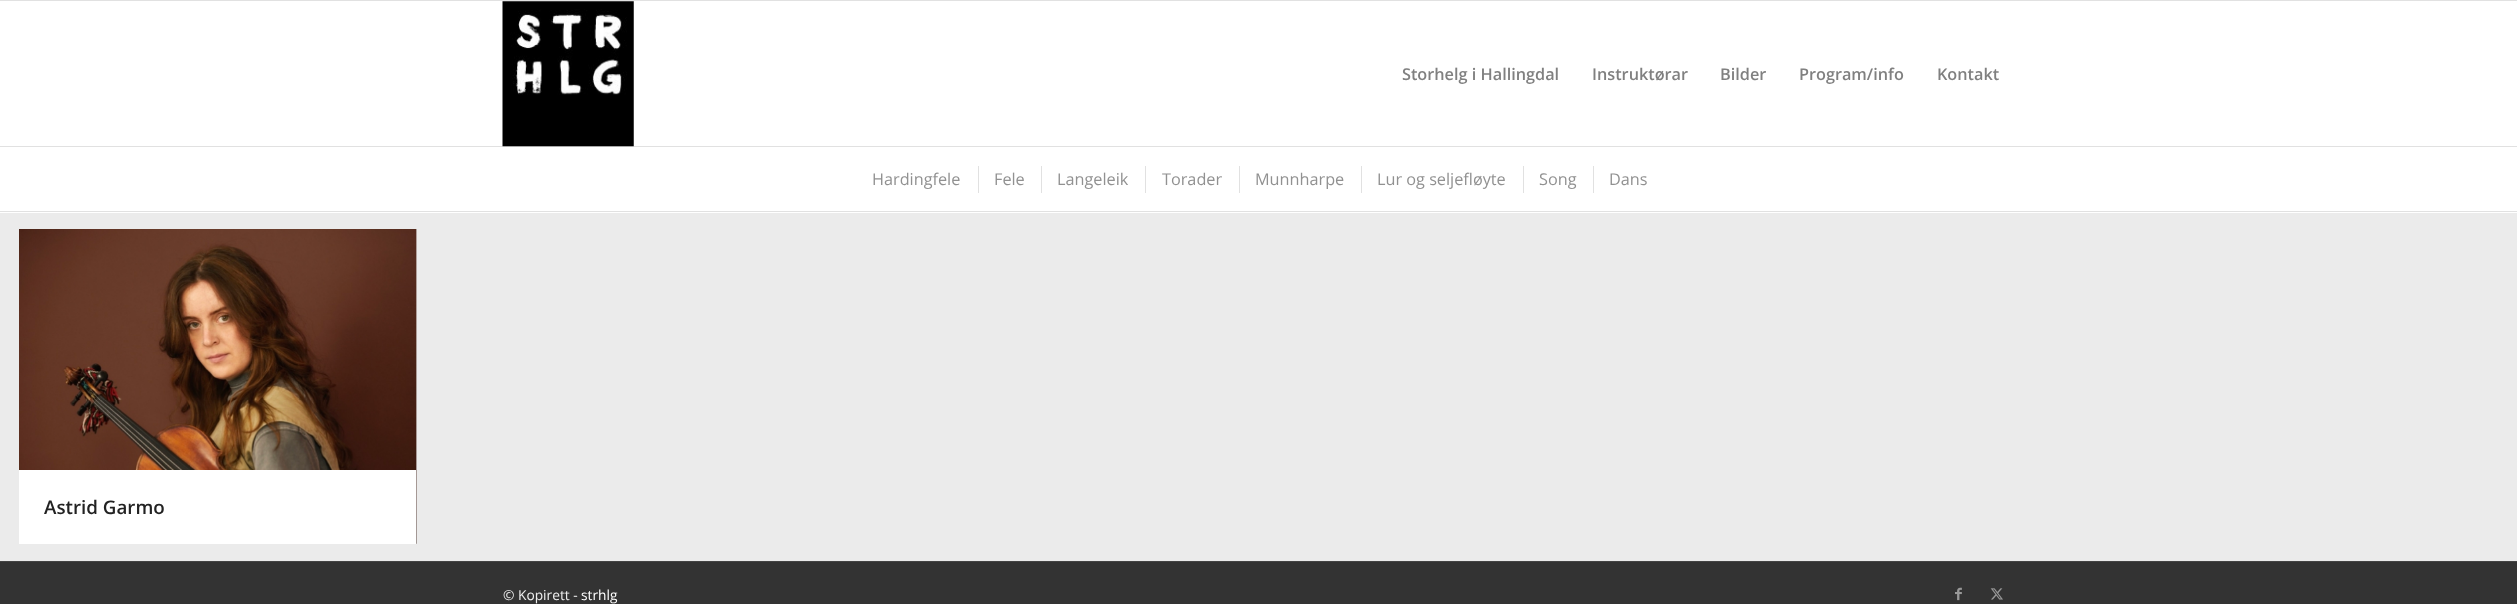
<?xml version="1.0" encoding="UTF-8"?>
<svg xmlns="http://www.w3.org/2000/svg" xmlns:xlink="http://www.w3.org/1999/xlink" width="2517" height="604">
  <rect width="100%" height="100%" fill="#ffffff" />
  <rect width="2517" height="1" fill="#e1e1e1" />
  <rect y="146" width="2517" height="1" fill="#e1e1e1" />
  <image x="502" y="1" width="132" height="146" xlink:href="image1.png" />
  <rect y="211" width="2517" height="1" fill="#e1e1e1" />
  <rect x="978" y="166" width="1" height="27" fill="#e1e1e1" />
  <rect x="1041" y="166" width="1" height="27" fill="#e1e1e1" />
  <rect x="1145" y="166" width="1" height="27" fill="#e1e1e1" />
  <rect x="1239" y="166" width="1" height="27" fill="#e1e1e1" />
  <rect x="1361" y="166" width="1" height="27" fill="#e1e1e1" />
  <rect x="1523" y="166" width="1" height="27" fill="#e1e1e1" />
  <rect x="1593" y="166" width="1" height="27" fill="#e1e1e1" />
  <rect y="213" width="2517" height="348" fill="#ebebeb" />
  <image x="19" y="229" width="398" height="315" xlink:href="image2.png" />
  <rect x="19" y="470" width="397" height="74" fill="#ffffff" />
  <rect y="562" width="2517" height="42" fill="#333333" />
  <rect y="561" width="2517" height="1" fill="#444444" />
  <image x="1955" y="587" width="7" height="14" xlink:href="image3.png" />
  <image x="1990" y="588" width="13" height="12" xlink:href="image4.png" />
  <text x="1402" y="80" style="font-family: Open Sans; font-size: 16.25px; font-weight: 600; fill: #808080">Storhelg i Hallingdal</text>
  <text x="1592" y="80" style="font-family: Open Sans; font-size: 16.25px; font-weight: 600; fill: #808080">Instruktørar</text>
  <text x="1720" y="80" style="font-family: Open Sans; font-size: 16.25px; font-weight: 600; fill: #808080">Bilder</text>
  <text x="1799" y="80" style="font-family: Open Sans; font-size: 16.25px; font-weight: 600; fill: #808080">Program/info</text>
  <text x="1937" y="80" style="font-family: Open Sans; font-size: 16.25px; font-weight: 600; fill: #808080">Kontakt</text>
  <text x="872" y="185" style="font-family: Open Sans; font-size: 16.25px; fill: #919191">Hardingfele</text>
  <text x="994" y="185" style="font-family: Open Sans; font-size: 16.25px; fill: #919191">Fele</text>
  <text x="1057" y="185" style="font-family: Open Sans; font-size: 16.25px; fill: #919191">Langeleik</text>
  <text x="1162" y="185" style="font-family: Open Sans; font-size: 16.25px; fill: #919191">Torader</text>
  <text x="1255" y="185" style="font-family: Open Sans; font-size: 16.25px; fill: #919191">Munnharpe</text>
  <text x="1377" y="185" style="font-family: Open Sans; font-size: 16.25px; fill: #919191">Lur og seljefløyte</text>
  <text x="1539" y="185" style="font-family: Open Sans; font-size: 16.25px; fill: #919191">Song</text>
  <text x="1609" y="185" style="font-family: Open Sans; font-size: 16.25px; fill: #919191">Dans</text>
  <text x="44" y="514" style="font-family: Open Sans; font-size: 18.75px; font-weight: 600; fill: #222222">Astrid Garmo</text>
  <text x="503" y="600" style="font-family: Open Sans; font-size: 13.75px; fill: #eeeeee">© Kopirett -</text>
  <text x="581" y="600" style="font-family: Open Sans; font-size: 13.75px; fill: #ffffff">strhlg</text>
</svg>
